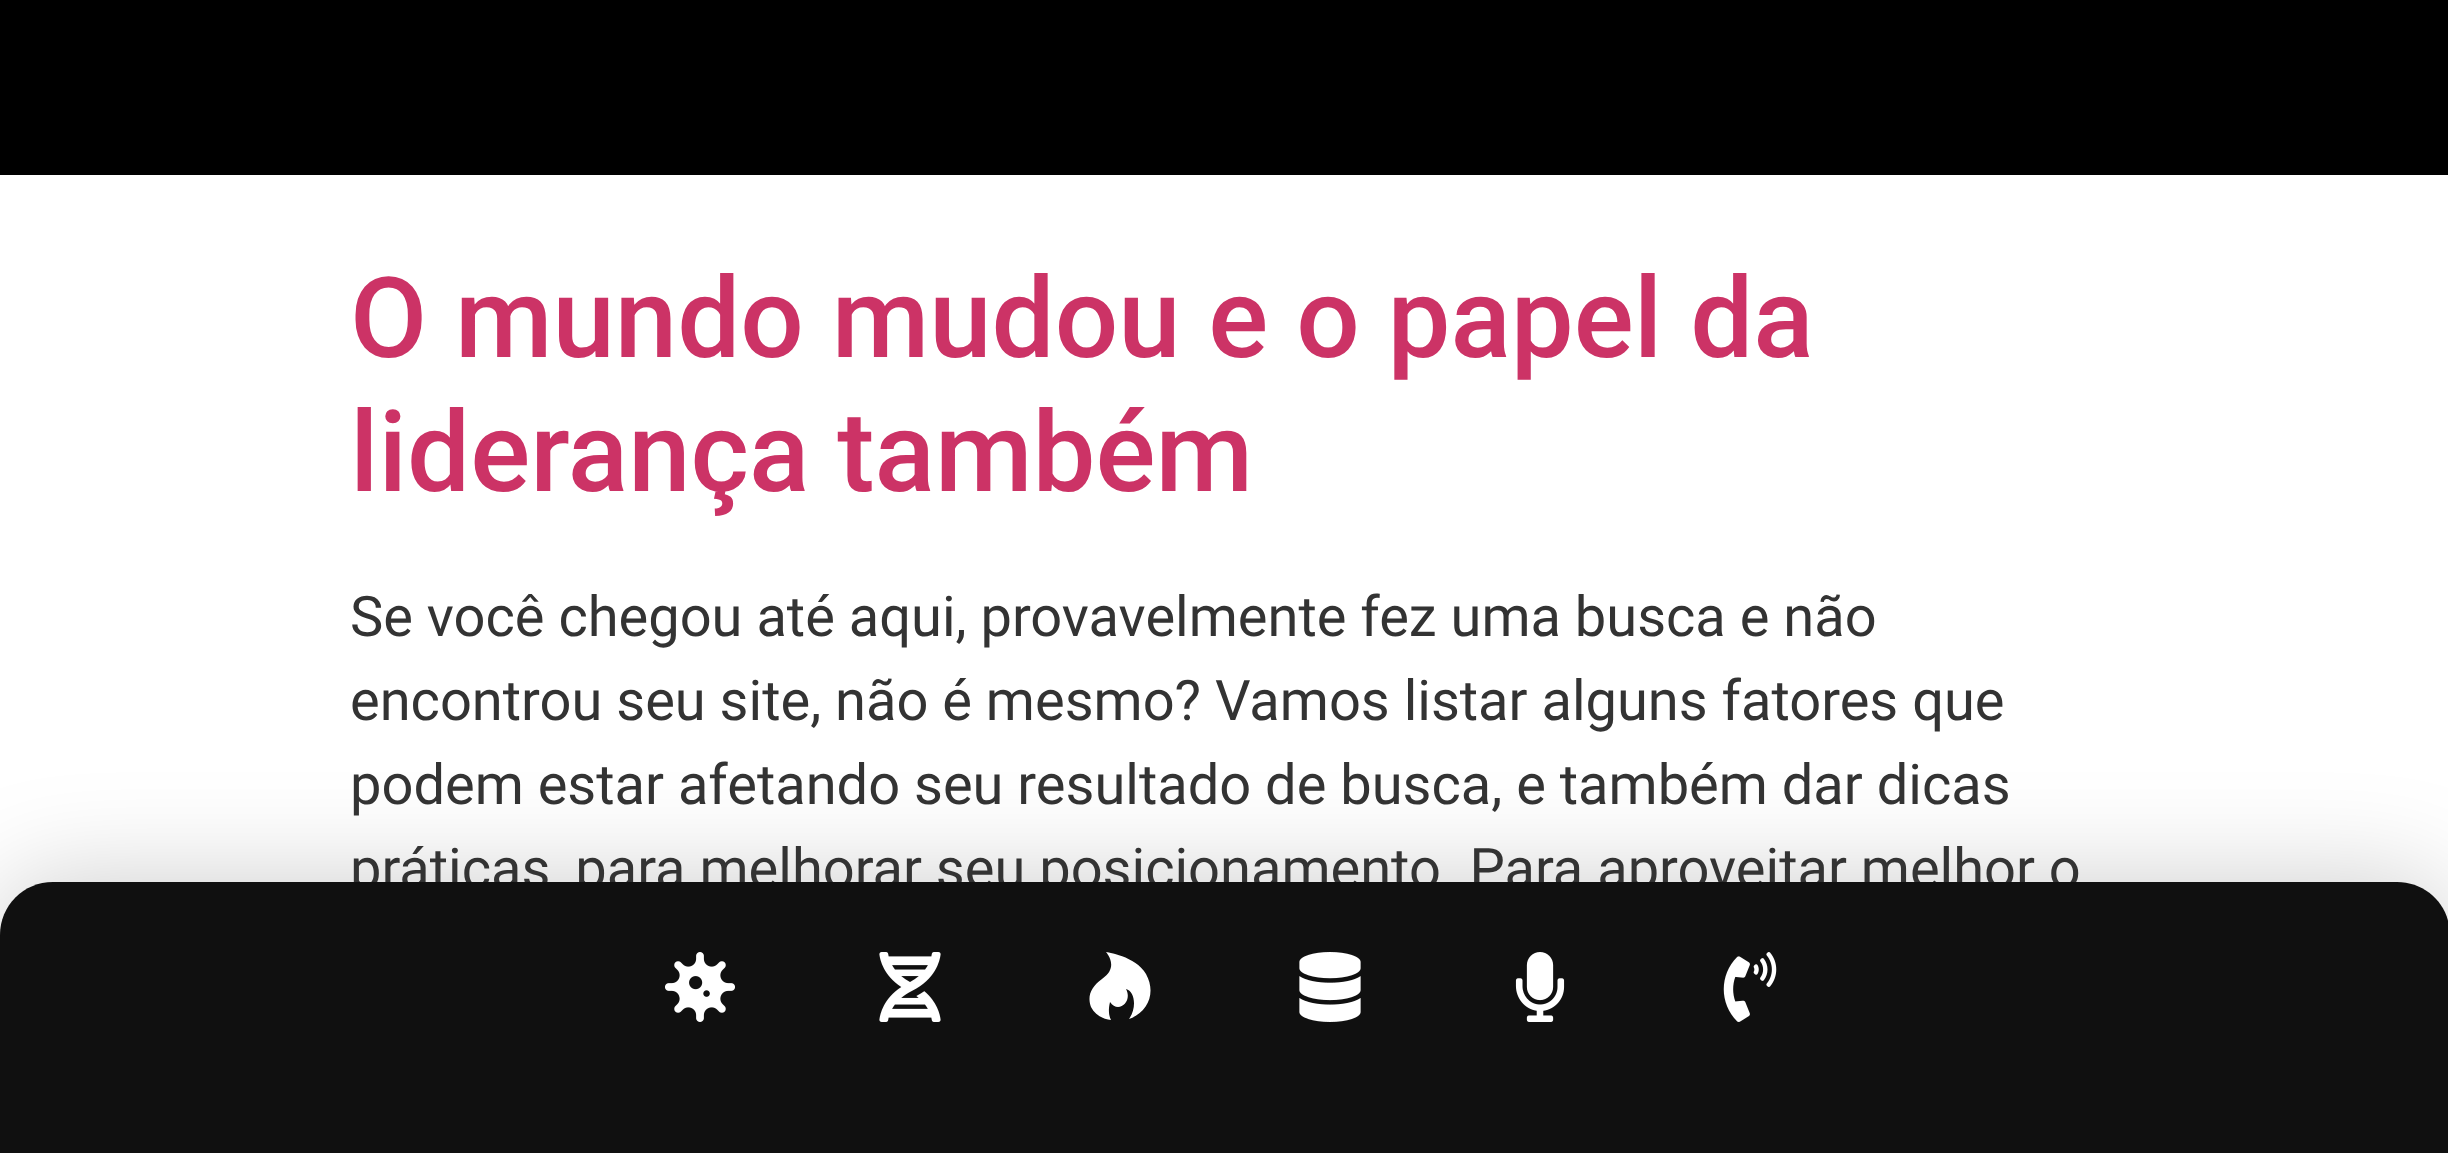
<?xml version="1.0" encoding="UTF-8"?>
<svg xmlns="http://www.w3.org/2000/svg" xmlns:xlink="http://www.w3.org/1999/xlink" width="2448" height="1153">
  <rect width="100%" height="100%" fill="#ffffff" />
  <rect width="2448" height="175" fill="#000000" />
  <rect y="882" width="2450" height="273" rx="53" fill="#000000" fill-opacity="0.2" filter="blur(52.5px)" />
  <text x="350" y="357" style="font-family: Roboto; font-size: 112px; font-weight: 500; fill: #cc3366">O mundo mudou e o papel da</text>
  <text x="350" y="491" style="font-family: Roboto; font-size: 112px; font-weight: 500; fill: #cc3366">liderança também</text>
  <text x="350" y="636" style="font-family: Roboto; font-size: 56px; fill: #333333">Se você chegou até aqui, provavelmente fez uma busca e não</text>
  <text x="350" y="720" style="font-family: Roboto; font-size: 56px; fill: #333333">encontrou seu site, não é mesmo? Vamos listar alguns fatores que</text>
  <text x="350" y="804" style="font-family: Roboto; font-size: 56px; fill: #333333">podem estar afetando seu resultado de busca, e também dar dicas</text>
  <text x="350" y="888" style="font-family: Roboto; font-size: 56px; fill: #333333">práticas, para melhorar seu posicionamento. Para aproveitar melhor o</text>
  <path d="M 53 882 h 2344 c 29.5 0 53 23.5 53 53 v 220 h -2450 v -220 c 0 -29.5 23.5 -53 53 -53 z" fill="#101010" />
  <image x="1723" y="952" width="54" height="70" xlink:href="image5.png" />
  <image x="1515" y="952" width="50" height="70" xlink:href="image4.png" />
  <image x="1299" y="952" width="62" height="70" xlink:href="image3.png" />
  <path d="M 1146 974 c -10 -18 -40 -22 -40 -22 c 0 0 14 15 -4 27 c -11 8 -15 17 -11 28 c 4 8 12 12 20 13 c -4 -8 -1 -17 -1 -18 c 8 12 23 0 16 -13 c 9 2 11 19 3 30 c 20 -7 27 -27 17 -45 z" fill="#ffffff" />
  <image x="879" y="952" width="62" height="70" xlink:href="image2.png" />
  <image x="665" y="952" width="70" height="70" xlink:href="image1.png" />
</svg>
